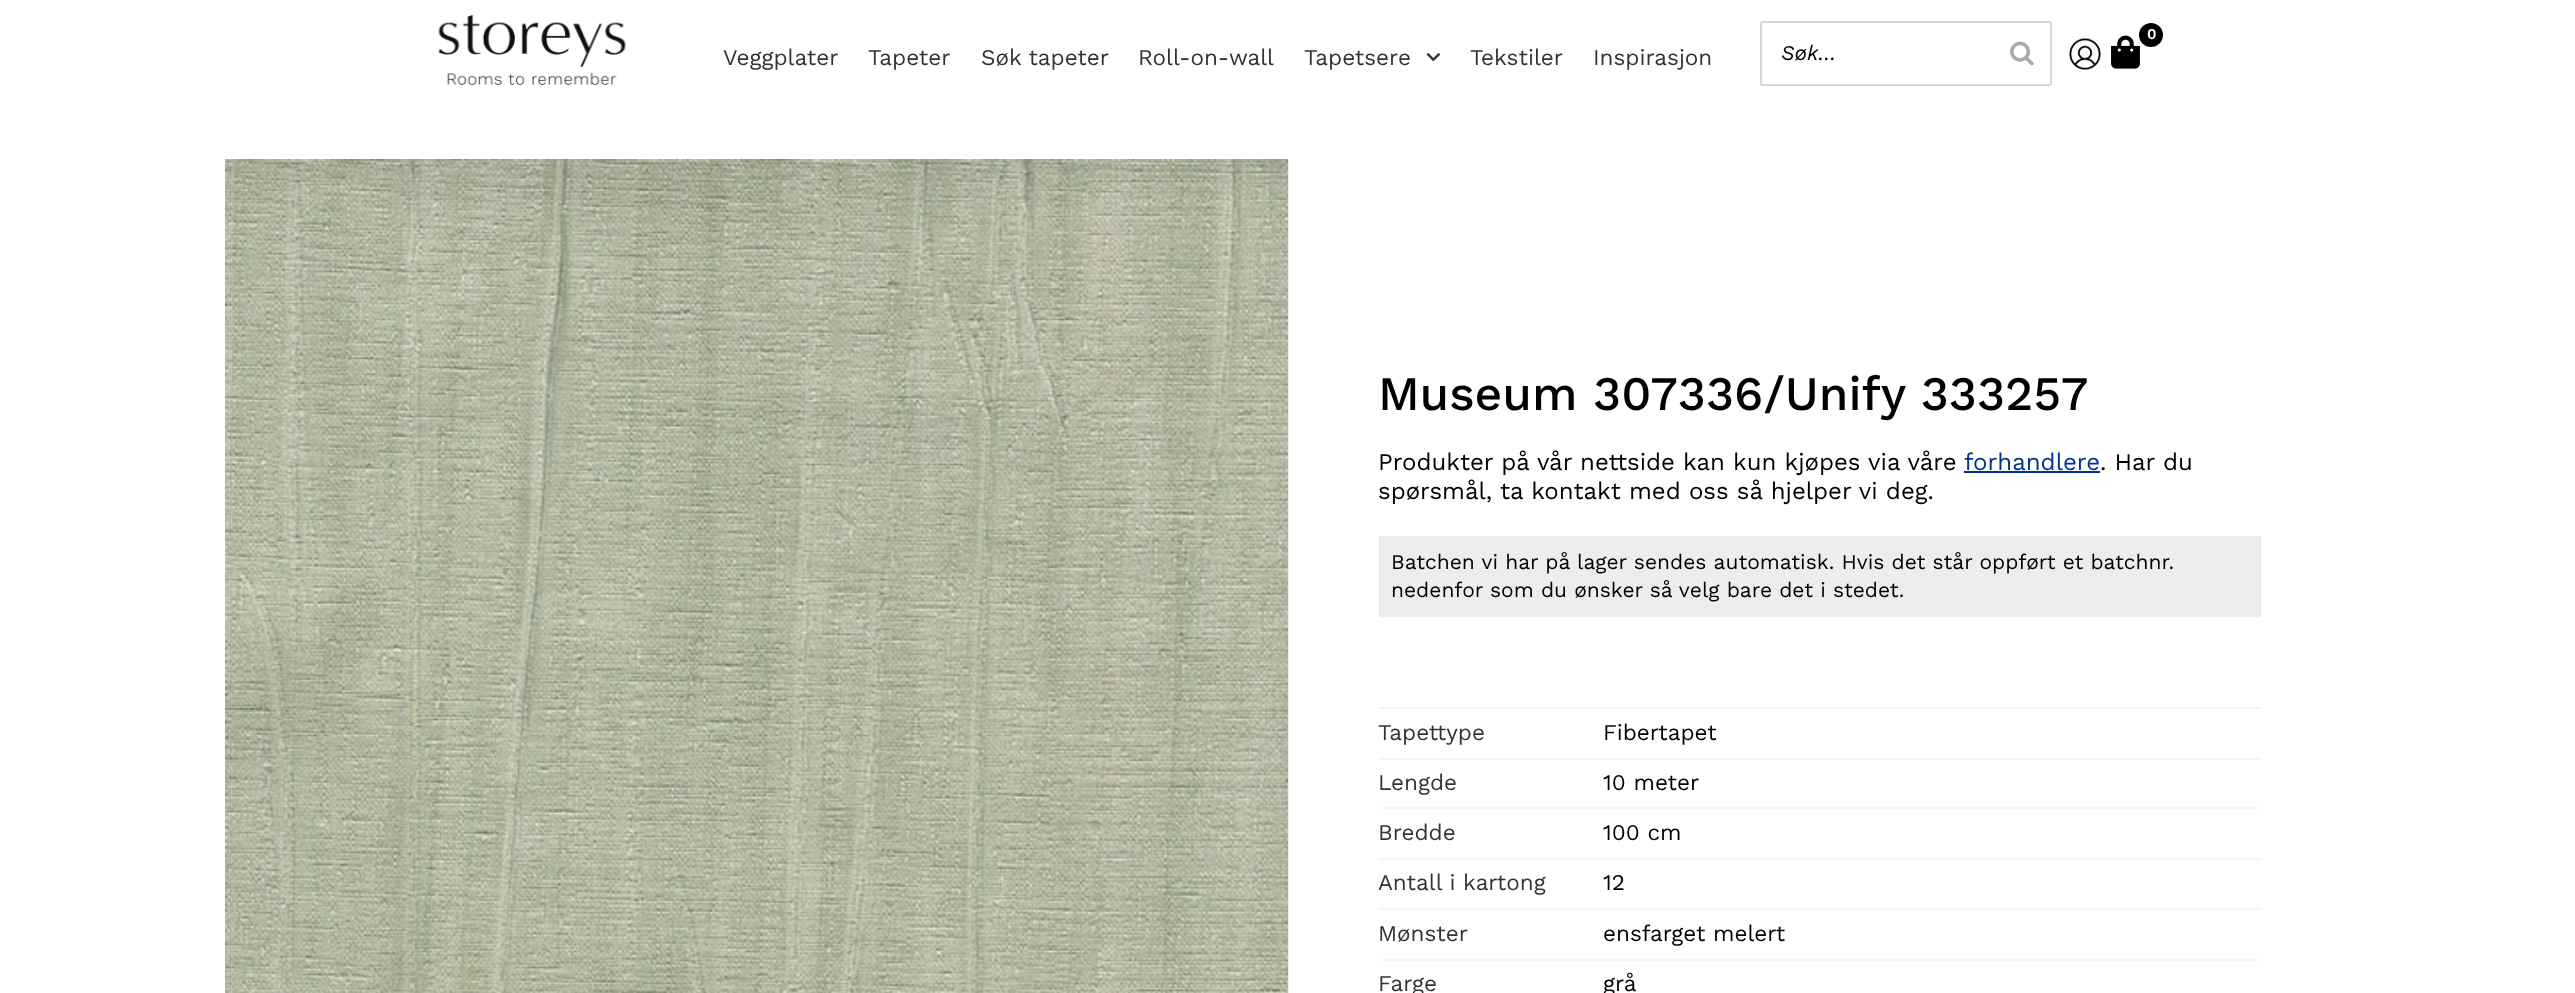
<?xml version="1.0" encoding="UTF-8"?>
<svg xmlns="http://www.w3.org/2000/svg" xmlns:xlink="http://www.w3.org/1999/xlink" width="2575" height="993">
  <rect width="100%" height="100%" fill="#ffffff" />
  <image x="438" y="15" width="189" height="70" xlink:href="image1.png" />
  <image x="1426" y="53" width="15" height="9" xlink:href="image2.png" />
  <rect x="1761" y="22" width="290" height="63" rx="2" fill="none" stroke="#d6d6d6" stroke-width="2" />
  <image x="2010" y="41" width="24" height="25" xlink:href="image3.png" />
  <image x="2069" y="38" width="32" height="32" xlink:href="image4.png" />
  <image x="2111" y="35" width="29" height="34" xlink:href="image5.png" />
  <circle cx="2151" cy="35" r="12" fill="#000000" />
  <image x="225" y="159" width="1064" height="834" xlink:href="image6.png" />
  <rect x="1964" y="471" width="136" height="2" fill="#00338f" />
  <rect x="1379" y="536" width="882" height="81" fill="#ededed" />
  <rect x="1379" y="707" width="882" height="2" fill="#f5f5f5" />
  <rect x="1379" y="758" width="882" height="2" fill="#f5f5f5" />
  <rect x="1379" y="807" width="882" height="2" fill="#f5f5f5" />
  <rect x="1379" y="858" width="882" height="2" fill="#f5f5f5" />
  <rect x="1379" y="908" width="882" height="2" fill="#f5f5f5" />
  <rect x="1379" y="959" width="882" height="2" fill="#f5f5f5" />
  <text x="723" y="65" style="font-family: Work Sans; font-size: 22.5px; fill: #333333">Veggplater</text>
  <text x="868" y="65" style="font-family: Work Sans; font-size: 22.5px; fill: #333333">Tapeter</text>
  <text x="981" y="65" style="font-family: Work Sans; font-size: 22.5px; fill: #333333">Søk tapeter</text>
  <text x="1138" y="65" style="font-family: Work Sans; font-size: 22.5px; fill: #333333">Roll-on-wall</text>
  <text x="1304" y="65" style="font-family: Work Sans; font-size: 22.5px; fill: #333333">Tapetsere</text>
  <text x="1470" y="65" style="font-family: Work Sans; font-size: 22.5px; fill: #333333">Tekstiler</text>
  <text x="1593" y="65" style="font-family: Work Sans; font-size: 22.5px; fill: #333333">Inspirasjon</text>
  <text x="1781" y="60" style="font-family: Work Sans; font-size: 21px; font-style: italic; fill: #000000">Søk…</text>
  <text x="2147" y="39" style="font-family: Work Sans; font-size: 15px; font-weight: 600; fill: #ffffff">0</text>
  <text x="1378" y="410" style="font-family: Work Sans; font-size: 48px; font-weight: 500; fill: #000000">Museum 307336/Unify 333257</text>
  <text x="1378" y="470" style="font-family: Work Sans; font-size: 24px; fill: #000000">Produkter på vår nettside kan kun kjøpes via våre</text>
  <text x="1964" y="470" style="font-family: Work Sans; font-size: 24px; fill: #00338f">forhandlere</text>
  <text x="2100" y="470" style="font-family: Work Sans; font-size: 24px; fill: #000000">. Har du</text>
  <text x="1378" y="499" style="font-family: Work Sans; font-size: 24px; fill: #000000">spørsmål, ta kontakt med oss så hjelper vi deg.</text>
  <text x="1391" y="569" style="font-family: Work Sans; font-size: 21px; fill: #000000">Batchen vi har på lager sendes automatisk. Hvis det står oppført et batchnr.</text>
  <text x="1391" y="597" style="font-family: Work Sans; font-size: 21px; fill: #000000">nedenfor som du ønsker så velg bare det i stedet.</text>
  <text x="1378" y="740" style="font-family: Work Sans; font-size: 22.5px; fill: #333333">Tapettype</text>
  <text x="1603" y="740" style="font-family: Work Sans; font-size: 22.5px; fill: #000000">Fibertapet</text>
  <text x="1378" y="790" style="font-family: Work Sans; font-size: 22.5px; fill: #333333">Lengde</text>
  <text x="1603" y="790" style="font-family: Work Sans; font-size: 22.5px; fill: #000000">10 meter</text>
  <text x="1378" y="840" style="font-family: Work Sans; font-size: 22.5px; fill: #333333">Bredde</text>
  <text x="1603" y="840" style="font-family: Work Sans; font-size: 22.5px; fill: #000000">100 cm</text>
  <text x="1378" y="890" style="font-family: Work Sans; font-size: 22.5px; fill: #333333">Antall i kartong</text>
  <text x="1603" y="890" style="font-family: Work Sans; font-size: 22.5px; fill: #000000">12</text>
  <text x="1378" y="941" style="font-family: Work Sans; font-size: 22.5px; fill: #333333">Mønster</text>
  <text x="1603" y="941" style="font-family: Work Sans; font-size: 22.5px; fill: #000000">ensfarget melert</text>
  <text x="1378" y="991" style="font-family: Work Sans; font-size: 22.5px; fill: #333333">Farge</text>
  <text x="1603" y="991" style="font-family: Work Sans; font-size: 22.5px; fill: #000000">grå</text>
</svg>
